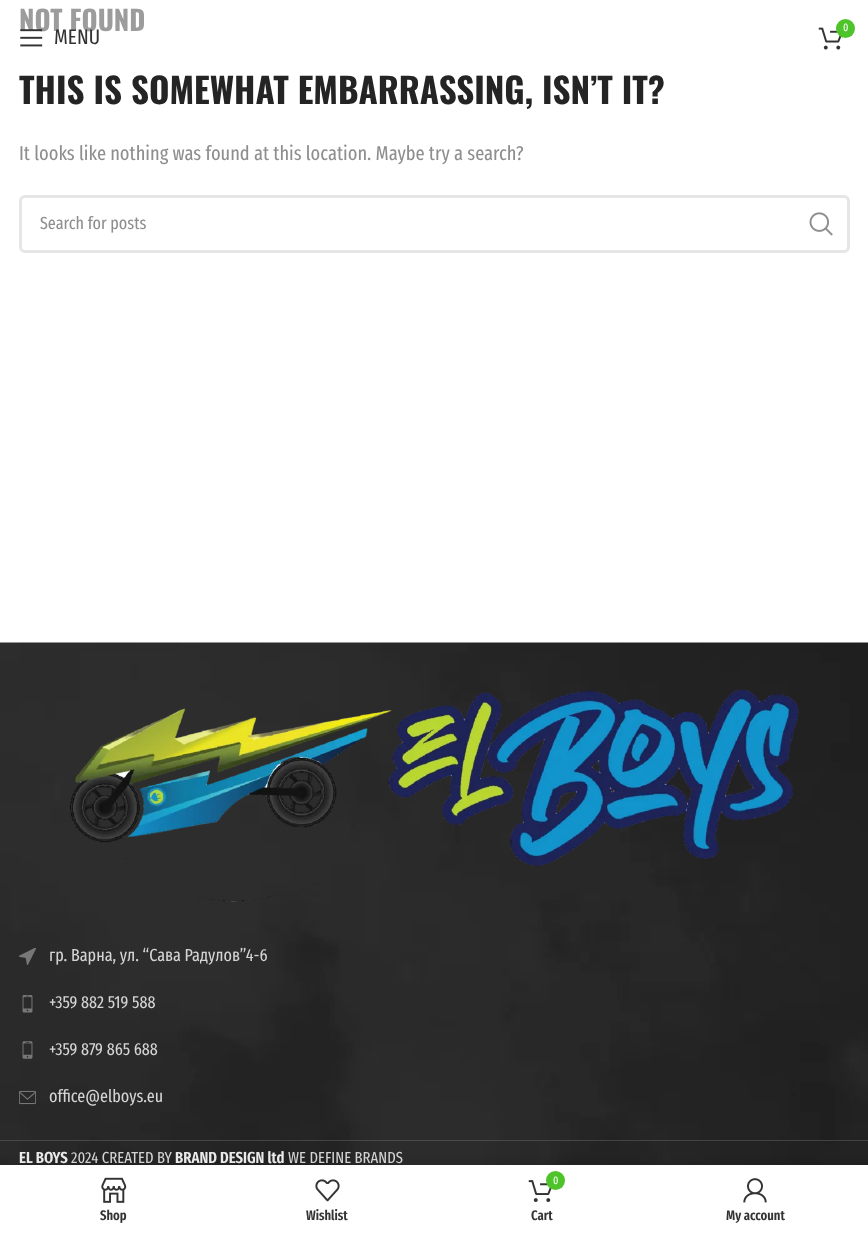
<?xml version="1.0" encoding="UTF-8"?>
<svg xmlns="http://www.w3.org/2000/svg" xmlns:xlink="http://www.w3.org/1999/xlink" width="868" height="1233">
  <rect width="100%" height="100%" fill="#ffffff" />
  <rect x="20.5" y="196.5" width="828" height="55" rx="4.5" fill="none" stroke="#e6e6e6" stroke-width="3" />
  <image x="809" y="212" width="24" height="24" xlink:href="image1.png" />
  <image x="818" y="27" width="24" height="23" xlink:href="image2.png" />
  <circle cx="845.5" cy="28.5" r="9.5" fill="#4ec42a" />
  <image x="0" y="642" width="868" height="523" xlink:href="image4.png" />
  <image x="70" y="689" width="729" height="213" xlink:href="image5.png" />
  <image x="19" y="948" width="17" height="17" xlink:href="image6.png" />
  <image x="22" y="995" width="11" height="18" xlink:href="image7.png" />
  <image x="22" y="1041" width="11" height="18" xlink:href="image8.png" />
  <image x="19" y="1090" width="17" height="15" xlink:href="image9.png" />
  <rect y="1140" width="868" height="1" fill="#ffffff" fill-opacity="0.15" />
  <rect y="1165" width="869" height="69" fill="#000000" fill-opacity="0.12" filter="blur(5.5px)" />
  <rect y="1165" width="868" height="68" fill="#ffffff" />
  <image x="101" y="1177" width="26" height="26" xlink:href="image10.png" />
  <image x="315" y="1179" width="25" height="23" xlink:href="image11.png" />
  <image x="528" y="1180" width="24" height="22" xlink:href="image12.png" />
  <circle cx="555.5" cy="1180.5" r="9.5" fill="#4ec42a" />
  <image x="743" y="1178" width="24" height="25" xlink:href="image13.png" />
  <text x="19" y="31" style="font-family: Oswald; font-size: 27.5px; font-weight: bold; fill: #9c9c9c">NOT FOUND</text>
  <text x="19" y="104" style="font-family: Oswald; font-size: 35px; font-weight: bold; fill: #242424">THIS IS SOMEWHAT EMBARRASSING, ISN’T IT?</text>
  <text x="19" y="160" style="font-family: Fira Sans Extra Condensed; font-size: 20px; fill: #8e8e8e">It looks like nothing was found at this location. Maybe try a search?</text>
  <text x="40" y="229" style="font-family: Fira Sans Extra Condensed; font-size: 17.5px; fill: #8e8e8e">Search for posts</text>
  <text x="843" y="31" style="font-family: Fira Sans Extra Condensed; font-size: 11px; fill: #ffffff">0</text>
  <image x="20" y="29" width="23" height="18" xlink:href="image3.png" />
  <text x="54" y="44" style="font-family: Fira Sans Extra Condensed; font-size: 21px; fill: #333333">MENU</text>
  <text x="49" y="961" style="font-family: Fira Sans Extra Condensed; font-size: 17.5px; fill: #d4d4d4">гр. Варна, ул. “Сава Радулов”4-6</text>
  <text x="49" y="1008" style="font-family: Fira Sans Extra Condensed; font-size: 17.5px; fill: #d4d4d4">+359 882 519 588</text>
  <text x="49" y="1055" style="font-family: Fira Sans Extra Condensed; font-size: 17.5px; fill: #d4d4d4">+359 879 865 688</text>
  <text x="49" y="1102" style="font-family: Fira Sans Extra Condensed; font-size: 17.5px; fill: #d4d4d4">office@elboys.eu</text>
  <text x="19" y="1163" style="font-family: Fira Sans Extra Condensed; font-size: 16px; font-weight: 600; fill: #eaeaea">EL BOYS</text>
  <text x="71" y="1163" style="font-family: Fira Sans Extra Condensed; font-size: 16px; fill: #d4d4d4">2024 CREATED BY</text>
  <text x="175" y="1163" style="font-family: Fira Sans Extra Condensed; font-size: 16px; font-weight: 600; fill: #eaeaea">BRAND DESIGN ltd</text>
  <text x="288" y="1163" style="font-family: Fira Sans Extra Condensed; font-size: 16px; fill: #d4d4d4">WE DEFINE BRANDS</text>
  <text x="100" y="1220" style="font-family: Fira Sans Extra Condensed; font-size: 13.75px; font-weight: 600; fill: #333333">Shop</text>
  <text x="306" y="1220" style="font-family: Fira Sans Extra Condensed; font-size: 13.75px; font-weight: 600; fill: #333333">Wishlist</text>
  <text x="553" y="1184" style="font-family: Fira Sans Extra Condensed; font-size: 11px; fill: #ffffff">0</text>
  <text x="531" y="1220" style="font-family: Fira Sans Extra Condensed; font-size: 13.75px; font-weight: 600; fill: #333333">Cart</text>
  <text x="726" y="1220" style="font-family: Fira Sans Extra Condensed; font-size: 13.75px; font-weight: 600; fill: #333333">My account</text>
</svg>
